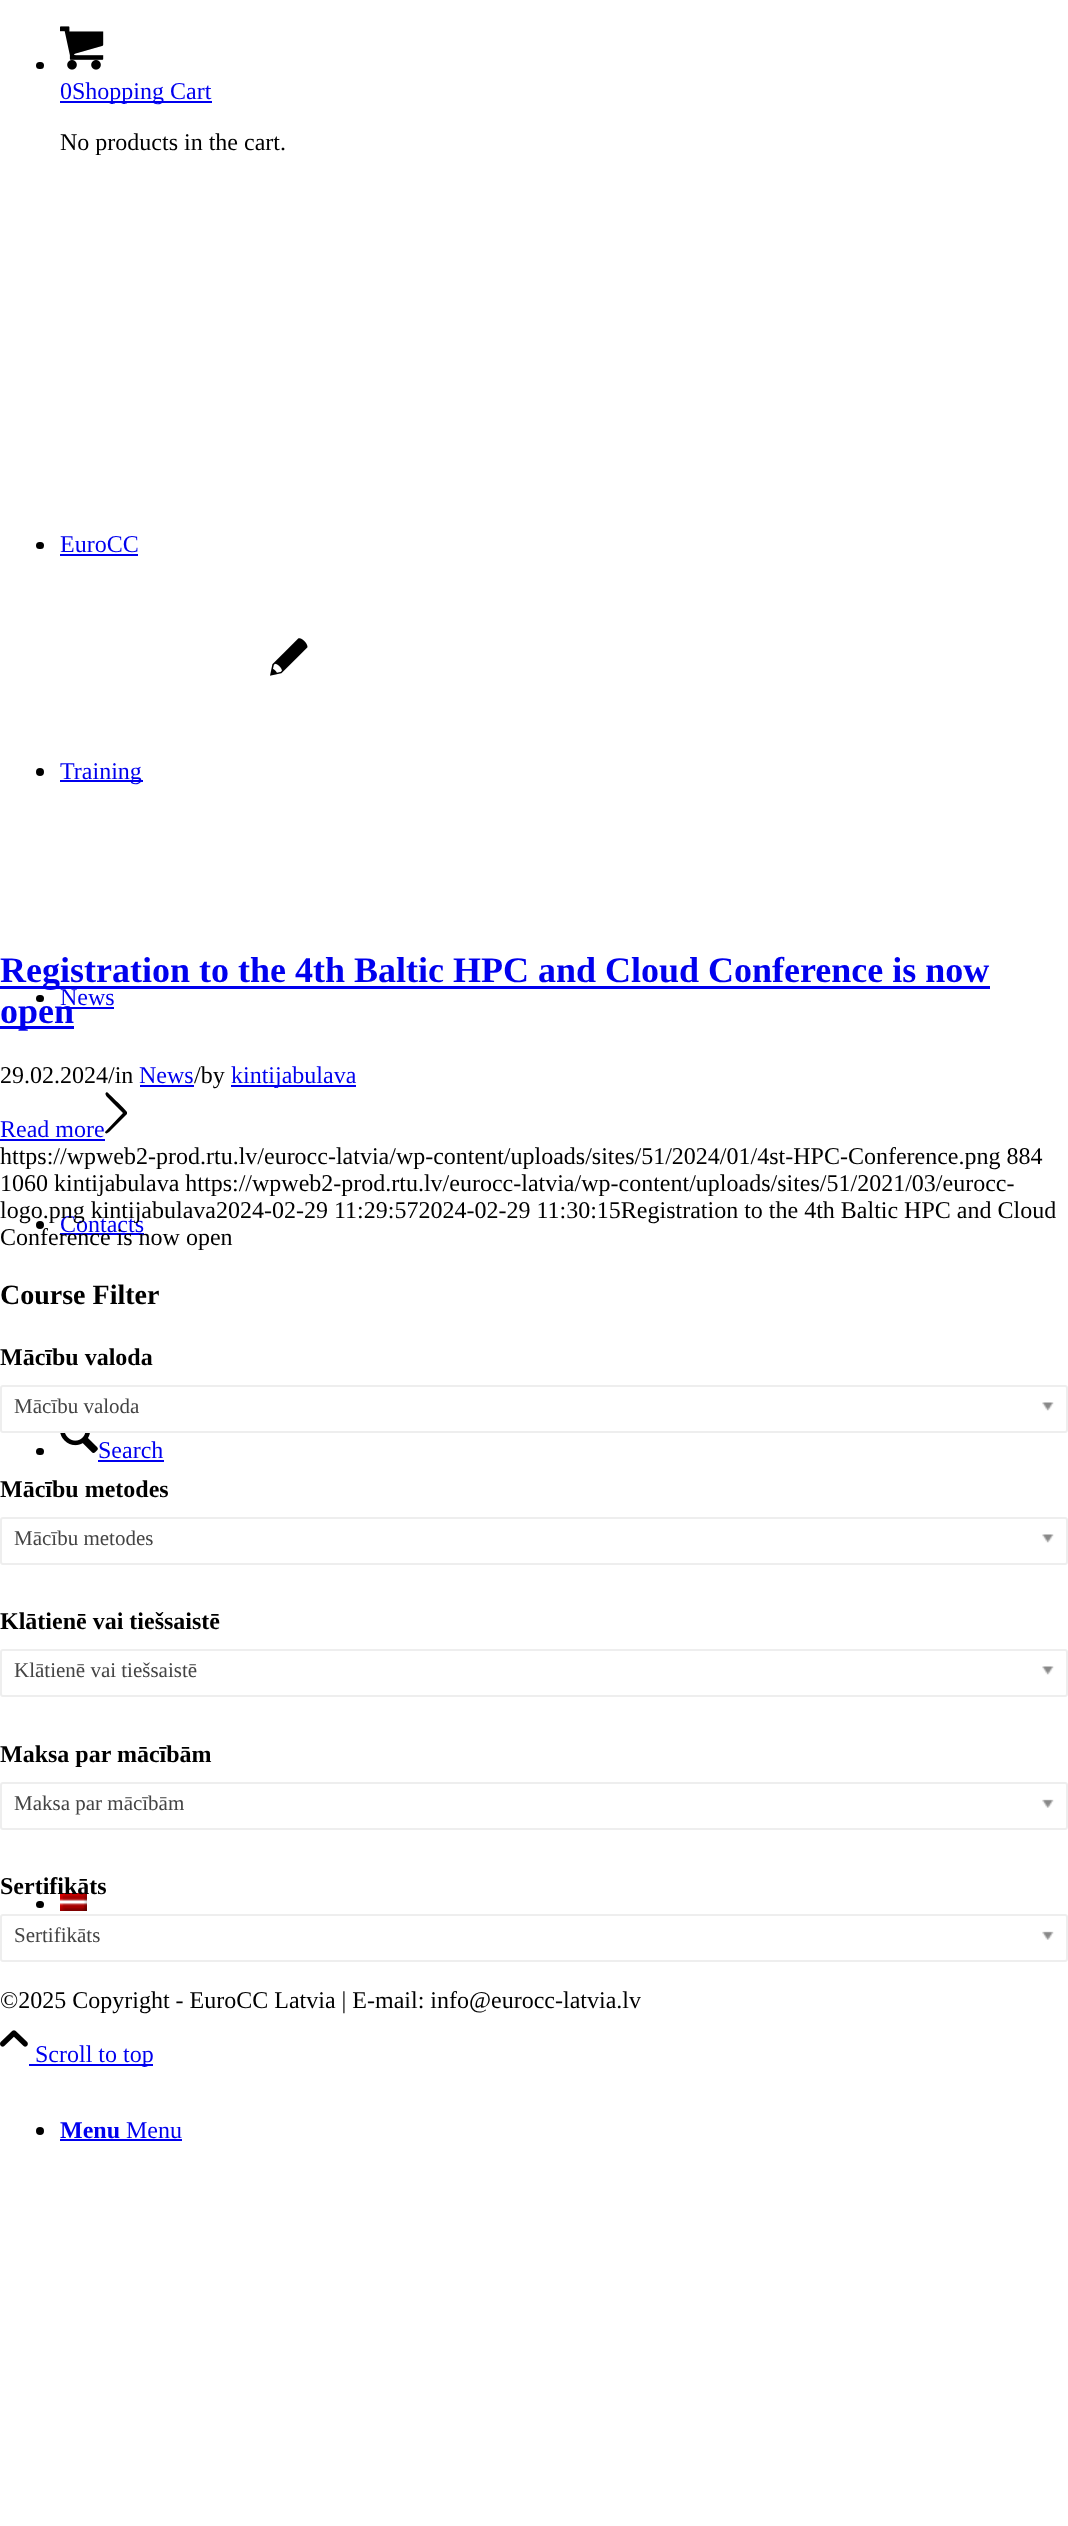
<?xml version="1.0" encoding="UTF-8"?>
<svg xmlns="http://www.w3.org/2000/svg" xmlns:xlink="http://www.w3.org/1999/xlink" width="1068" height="2526">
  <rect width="100%" height="100%" fill="#ffffff" />
  <rect x="36" y="62" width="8" height="7" rx="3.5" fill="#000000" />
  <image x="60" y="26" width="44" height="44" xlink:href="image1.png" />
  <rect x="60" y="101" width="152" height="2" fill="#0000ee" />
  <rect x="36" y="542" width="8" height="7" rx="3.5" fill="#000000" />
  <rect x="60" y="554" width="78" height="2" fill="#0000ee" />
  <circle cx="40" cy="772" r="4" fill="#000000" />
  <rect x="60" y="780" width="83" height="2" fill="#0000ee" />
  <rect x="36" y="995" width="8" height="7" rx="3.5" fill="#000000" />
  <rect x="60" y="1007" width="54" height="2" fill="#0000ee" />
  <circle cx="40" cy="1225" r="4" fill="#000000" />
  <rect x="60" y="1233" width="84" height="2" fill="#0000ee" />
  <rect x="36" y="1448" width="8" height="7" rx="3.5" fill="#000000" />
  <image x="60" y="1433" width="38" height="20" xlink:href="image2.png" />
  <rect x="98" y="1460" width="66" height="2" fill="#0000ee" />
  <rect x="36" y="1901" width="8" height="7" rx="3.5" fill="#000000" />
  <image x="60" y="1893" width="27" height="18" xlink:href="image3.png" />
  <circle cx="40" cy="2131" r="4" fill="#000000" />
  <rect x="60" y="2139" width="122" height="2" fill="#0000ee" />
  <image x="270" y="638" width="38" height="38" xlink:href="image4.png" />
  <rect y="986" width="990" height="3" fill="#0000ee" />
  <rect y="1026" width="74" height="3" fill="#0000ee" />
  <rect x="140" y="1085" width="54" height="2" fill="#0000ee" />
  <rect x="231" y="1085" width="125" height="2" fill="#0000ee" />
  <rect y="1139" width="105" height="2" fill="#0000ee" />
  <path d="M 106 1131 l 17 -18 l -12 -12 c 0 -1 -9 -7 -4 -9 c 0 0 18 17 20 20 v 2 l -16 16 c 0 0 -5 6 -6 2 z" fill="#000000" />
  <rect x="1" y="1386" width="1066" height="46" rx="2" fill="none" stroke="#eeeeee" stroke-width="2" />
  <image x="1042" y="1402" width="12" height="9" xlink:href="image5.png" />
  <rect x="1" y="1518" width="1066" height="46" rx="2" fill="none" stroke="#eeeeee" stroke-width="2" />
  <image x="1042" y="1534" width="12" height="9" xlink:href="image5.png" />
  <rect x="1" y="1650" width="1066" height="46" rx="2" fill="none" stroke="#eeeeee" stroke-width="2" />
  <image x="1042" y="1666" width="12" height="9" xlink:href="image5.png" />
  <rect x="1" y="1783" width="1066" height="46" rx="2" fill="none" stroke="#eeeeee" stroke-width="2" />
  <image x="1042" y="1799" width="12" height="9" xlink:href="image6.png" />
  <rect x="1" y="1915" width="1066" height="46" rx="2" fill="none" stroke="#eeeeee" stroke-width="2" />
  <image x="1042" y="1931" width="12" height="9" xlink:href="image6.png" />
  <image x="0" y="2030" width="28" height="17" xlink:href="image7.png" />
  <rect x="29" y="2064" width="124" height="2" fill="#0000ee" />
  <text x="60" y="99" style="font-family: Liberation Serif; font-size: 24px; fill: #0000ee">0Shopping Cart</text>
  <text x="60" y="150" style="font-family: Liberation Serif; font-size: 24px; fill: #000000">No products in the cart.</text>
  <text x="60" y="552" style="font-family: Liberation Serif; font-size: 24px; fill: #0000ee">EuroCC</text>
  <text x="60" y="779" style="font-family: Liberation Serif; font-size: 24px; fill: #0000ee">Training</text>
  <text x="60" y="1005" style="font-family: Liberation Serif; font-size: 24px; fill: #0000ee">News</text>
  <text x="60" y="1232" style="font-family: Liberation Serif; font-size: 24px; fill: #0000ee">Contacts</text>
  <text x="98" y="1458" style="font-family: Liberation Serif; font-size: 24px; fill: #0000ee">Search</text>
  <text x="60" y="2138" style="font-family: Liberation Serif; font-size: 24px; font-weight: bold; fill: #0000ee">Menu</text>
  <text x="126" y="2138" style="font-family: Liberation Serif; font-size: 24px; fill: #0000ee">Menu</text>
  <text x="0" y="982" style="font-family: Liberation Serif; font-size: 36px; font-weight: bold; fill: #0000ee">Registration to the 4th Baltic HPC and Cloud Conference is now</text>
  <text x="0" y="1023" style="font-family: Liberation Serif; font-size: 36px; font-weight: bold; fill: #0000ee">open</text>
  <text x="0" y="1083" style="font-family: Liberation Serif; font-size: 24px; fill: #000000">29.02.2024/in</text>
  <text x="139" y="1083" style="font-family: Liberation Serif; font-size: 24px; fill: #0000ee">News</text>
  <text x="194" y="1083" style="font-family: Liberation Serif; font-size: 24px; fill: #000000">/by</text>
  <text x="231" y="1083" style="font-family: Liberation Serif; font-size: 24px; fill: #0000ee">kintijabulava</text>
  <text x="0" y="1137" style="font-family: Liberation Serif; font-size: 24px; fill: #0000ee">Read more</text>
  <text x="0" y="1164" style="font-family: Liberation Serif; font-size: 24px; fill: #000000">https://wpweb2-prod.rtu.lv/eurocc-latvia/wp-content/uploads/sites/51/2024/01/4st-HPC-Conference.png 884</text>
  <text x="0" y="1191" style="font-family: Liberation Serif; font-size: 24px; fill: #000000">1060 kintijabulava https://wpweb2-prod.rtu.lv/eurocc-latvia/wp-content/uploads/sites/51/2021/03/eurocc-</text>
  <text x="0" y="1218" style="font-family: Liberation Serif; font-size: 24px; fill: #000000">logo.png kintijabulava2024-02-29 11:29:572024-02-29 11:30:15Registration to the 4th Baltic HPC and Cloud</text>
  <text x="0" y="1245" style="font-family: Liberation Serif; font-size: 24px; fill: #000000">Conference is now open</text>
  <text x="0" y="1304" style="font-family: Liberation Serif; font-size: 28px; font-weight: bold; fill: #000000">Course Filter</text>
  <text x="0" y="1365" style="font-family: Liberation Serif; font-size: 24px; font-weight: bold; fill: #000000">Mācību valoda</text>
  <text x="14" y="1413" style="font-family: Liberation Serif; font-size: 21px; fill: #444444">Mācību valoda</text>
  <text x="0" y="1497" style="font-family: Liberation Serif; font-size: 24px; font-weight: bold; fill: #000000">Mācību metodes</text>
  <text x="14" y="1545" style="font-family: Liberation Serif; font-size: 21px; fill: #444444">Mācību metodes</text>
  <text x="0" y="1629" style="font-family: Liberation Serif; font-size: 24px; font-weight: bold; fill: #000000">Klātienē vai tiešsaistē</text>
  <text x="14" y="1677" style="font-family: Liberation Serif; font-size: 21px; fill: #444444">Klātienē vai tiešsaistē</text>
  <text x="0" y="1762" style="font-family: Liberation Serif; font-size: 24px; font-weight: bold; fill: #000000">Maksa par mācībām</text>
  <text x="14" y="1810" style="font-family: Liberation Serif; font-size: 21px; fill: #444444">Maksa par mācībām</text>
  <text x="0" y="1894" style="font-family: Liberation Serif; font-size: 24px; font-weight: bold; fill: #000000">Sertifikāts</text>
  <text x="14" y="1942" style="font-family: Liberation Serif; font-size: 21px; fill: #444444">Sertifikāts</text>
  <text x="0" y="2008" style="font-family: Liberation Serif; font-size: 24px; fill: #000000">©2025 Copyright - EuroCC Latvia | E-mail: info@eurocc-latvia.lv</text>
  <text x="35" y="2062" style="font-family: Liberation Serif; font-size: 24px; fill: #0000ee">Scroll to top</text>
</svg>
